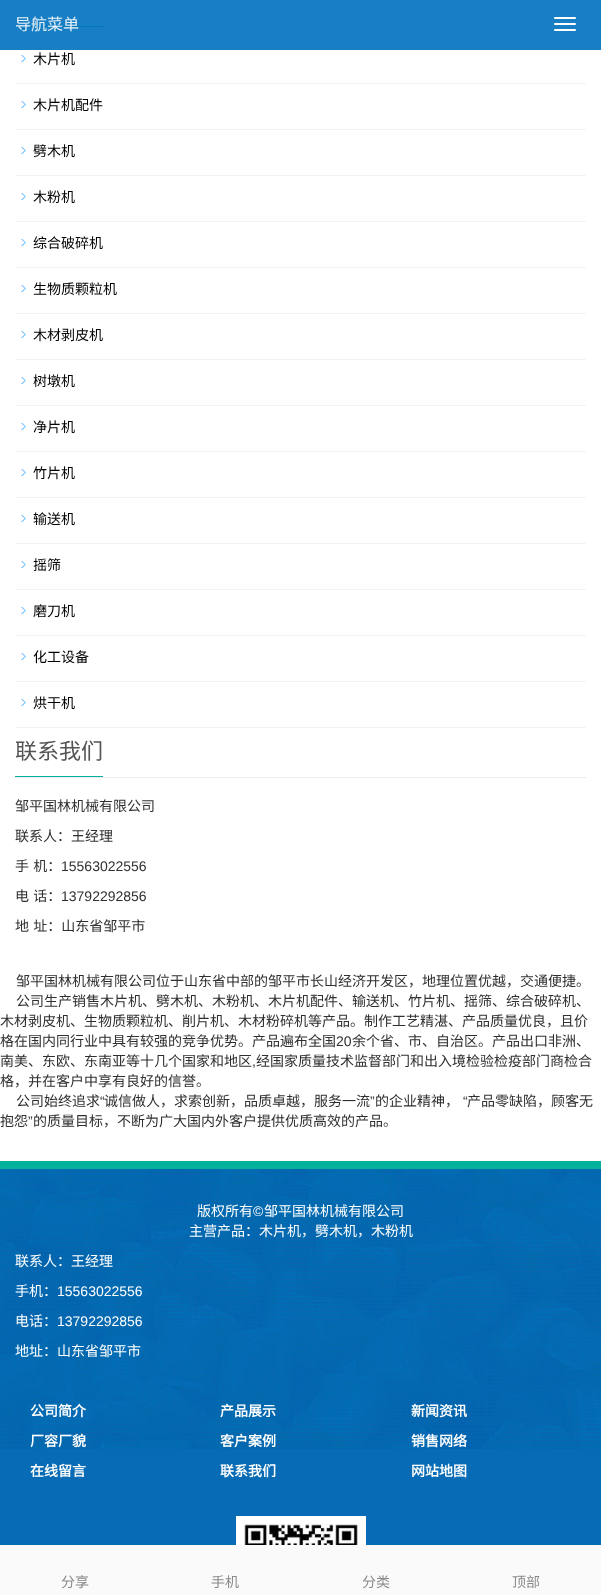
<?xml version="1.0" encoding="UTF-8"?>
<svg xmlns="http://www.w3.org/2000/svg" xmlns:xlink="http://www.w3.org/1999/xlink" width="601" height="1595">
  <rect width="100%" height="100%" fill="#ffffff" />
  <rect width="601" height="50" fill="#197fc5" />
  <rect x="554" y="17" width="22" height="2" rx="1" fill="#ffffff" />
  <rect x="554" y="23" width="22" height="2" rx="1" fill="#ffffff" />
  <rect x="554" y="29" width="22" height="2" rx="1" fill="#ffffff" />
  <rect x="15" y="26" width="88" height="1" fill="#0078bc" />
  <image x="21" y="55" width="5" height="7" xlink:href="image1.png" />
  <rect x="15" y="83" width="571" height="1" fill="#f2f2f2" />
  <image x="21" y="101" width="5" height="7" xlink:href="image1.png" />
  <rect x="15" y="129" width="571" height="1" fill="#f2f2f2" />
  <image x="21" y="147" width="5" height="7" xlink:href="image1.png" />
  <rect x="15" y="175" width="571" height="1" fill="#f2f2f2" />
  <image x="21" y="193" width="5" height="7" xlink:href="image1.png" />
  <rect x="15" y="221" width="571" height="1" fill="#f2f2f2" />
  <image x="21" y="239" width="5" height="7" xlink:href="image1.png" />
  <rect x="15" y="267" width="571" height="1" fill="#f2f2f2" />
  <image x="21" y="285" width="5" height="7" xlink:href="image1.png" />
  <rect x="15" y="313" width="571" height="1" fill="#f2f2f2" />
  <image x="21" y="331" width="5" height="7" xlink:href="image1.png" />
  <rect x="15" y="359" width="571" height="1" fill="#f2f2f2" />
  <image x="21" y="377" width="5" height="7" xlink:href="image1.png" />
  <rect x="15" y="405" width="571" height="1" fill="#f2f2f2" />
  <image x="21" y="423" width="5" height="7" xlink:href="image1.png" />
  <rect x="15" y="451" width="571" height="1" fill="#f2f2f2" />
  <image x="21" y="469" width="5" height="7" xlink:href="image1.png" />
  <rect x="15" y="497" width="571" height="1" fill="#f2f2f2" />
  <image x="21" y="515" width="5" height="7" xlink:href="image1.png" />
  <rect x="15" y="543" width="571" height="1" fill="#f2f2f2" />
  <image x="21" y="561" width="5" height="7" xlink:href="image1.png" />
  <rect x="15" y="589" width="571" height="1" fill="#f2f2f2" />
  <image x="21" y="607" width="5" height="7" xlink:href="image1.png" />
  <rect x="15" y="635" width="571" height="1" fill="#f2f2f2" />
  <image x="21" y="653" width="5" height="7" xlink:href="image1.png" />
  <rect x="15" y="681" width="571" height="1" fill="#f2f2f2" />
  <image x="21" y="699" width="5" height="7" xlink:href="image1.png" />
  <rect x="15" y="727" width="571" height="1" fill="#f2f2f2" />
  <rect x="15" y="777" width="571" height="1" fill="#ebebeb" />
  <rect x="15" y="776" width="88" height="1" fill="#02b29c" />
  <rect y="1449" width="601" height="96" fill="#076bb5" />
  <image x="0" y="1161" width="601" height="288" xlink:href="image2.png" />
  <image x="236" y="1516" width="130" height="29" xlink:href="image3.png" />
  <rect y="1545" width="601" height="50" fill="#fafafa" />
  <text x="15" y="30" style="font-family: Noto Sans CJK SC; font-size: 16px; fill: #e8f2f9">导航菜单</text>
  <text x="33" y="64" style="font-family: Noto Sans CJK SC; font-size: 14px; fill: #000000">木片机</text>
  <text x="33" y="110" style="font-family: Noto Sans CJK SC; font-size: 14px; fill: #000000">木片机配件</text>
  <text x="33" y="156" style="font-family: Noto Sans CJK SC; font-size: 14px; fill: #000000">劈木机</text>
  <text x="33" y="202" style="font-family: Noto Sans CJK SC; font-size: 14px; fill: #000000">木粉机</text>
  <text x="33" y="248" style="font-family: Noto Sans CJK SC; font-size: 14px; fill: #000000">综合破碎机</text>
  <text x="33" y="294" style="font-family: Noto Sans CJK SC; font-size: 14px; fill: #000000">生物质颗粒机</text>
  <text x="33" y="340" style="font-family: Noto Sans CJK SC; font-size: 14px; fill: #000000">木材剥皮机</text>
  <text x="33" y="386" style="font-family: Noto Sans CJK SC; font-size: 14px; fill: #000000">树墩机</text>
  <text x="33" y="432" style="font-family: Noto Sans CJK SC; font-size: 14px; fill: #000000">净片机</text>
  <text x="33" y="478" style="font-family: Noto Sans CJK SC; font-size: 14px; fill: #000000">竹片机</text>
  <text x="33" y="524" style="font-family: Noto Sans CJK SC; font-size: 14px; fill: #000000">输送机</text>
  <text x="33" y="570" style="font-family: Noto Sans CJK SC; font-size: 14px; fill: #000000">摇筛</text>
  <text x="33" y="616" style="font-family: Noto Sans CJK SC; font-size: 14px; fill: #000000">磨刀机</text>
  <text x="33" y="662" style="font-family: Noto Sans CJK SC; font-size: 14px; fill: #000000">化工设备</text>
  <text x="33" y="708" style="font-family: Noto Sans CJK SC; font-size: 14px; fill: #000000">烘干机</text>
  <text x="15" y="759" style="font-family: Noto Sans CJK SC; font-size: 22px; fill: #545454">联系我们</text>
  <text x="15" y="811" style="font-family: Noto Sans CJK SC; font-size: 14px; fill: #2f2f2f">邹平国林机械有限公司</text>
  <text x="15" y="841" style="font-family: Noto Sans CJK SC; font-size: 14px; fill: #2f2f2f">联系人：王经理</text>
  <text x="15" y="871" word-spacing="1" style="font-family: Noto Sans CJK SC; font-size: 14px; fill: #2f2f2f">手 机：</text>
  <text x="61" y="871" style="font-family: Liberation Sans; font-size: 14px; fill: #2f2f2f">15563022556</text>
  <text x="15" y="901" word-spacing="1" style="font-family: Noto Sans CJK SC; font-size: 14px; fill: #2f2f2f">电 话：</text>
  <text x="61" y="901" style="font-family: Liberation Sans; font-size: 14px; fill: #2f2f2f">13792292856</text>
  <text x="15" y="931" word-spacing="1" style="font-family: Noto Sans CJK SC; font-size: 14px; fill: #2f2f2f">地 址：山东省邹平市</text>
  <text x="16" y="986" style="font-family: Noto Sans CJK SC; font-size: 14px; fill: #2f2f2f">邹平国林机械有限公司位于山东省中部的邹平市长山经济开发区，地理位置优越，交通便捷。</text>
  <text x="16" y="1006" style="font-family: Noto Sans CJK SC; font-size: 14px; fill: #2f2f2f">公司生产销售</text>
  <text x="100" y="1006" style="font-family: Noto Sans CJK SC; font-size: 14px; fill: #2f2f2f">木片机</text>
  <text x="142" y="1006" style="font-family: Noto Sans CJK SC; font-size: 14px; fill: #2f2f2f">、</text>
  <text x="156" y="1006" style="font-family: Noto Sans CJK SC; font-size: 14px; fill: #2f2f2f">劈木机</text>
  <text x="198" y="1006" style="font-family: Noto Sans CJK SC; font-size: 14px; fill: #2f2f2f">、</text>
  <text x="212" y="1006" style="font-family: Noto Sans CJK SC; font-size: 14px; fill: #2f2f2f">木粉机</text>
  <text x="254" y="1006" style="font-family: Noto Sans CJK SC; font-size: 14px; fill: #2f2f2f">、木片机配件、输送机、竹片机、摇筛、综合破碎机、</text>
  <text x="0" y="1026" style="font-family: Noto Sans CJK SC; font-size: 14px; fill: #2f2f2f">木材剥皮机、生物质颗粒机、削片机、木材粉碎机等产品。制作工艺精湛、产品质量优良，且价</text>
  <text x="0" y="1046" style="font-family: Noto Sans CJK SC; font-size: 14px; fill: #2f2f2f">格在国内同行业中具有较强的竞争优势。产品遍布全国</text>
  <text x="336" y="1046" style="font-family: Liberation Sans; font-size: 14px; fill: #2f2f2f">20</text>
  <text x="352" y="1046" style="font-family: Noto Sans CJK SC; font-size: 14px; fill: #2f2f2f">余个省、市、自治区。产品出口非洲、</text>
  <text x="0" y="1066" style="font-family: Noto Sans CJK SC; font-size: 14px; fill: #2f2f2f">南美、东欧、东南亚等十几个国家和地区</text>
  <text x="252" y="1066" style="font-family: Liberation Sans; font-size: 14px; fill: #2f2f2f">,</text>
  <text x="256" y="1066" style="font-family: Noto Sans CJK SC; font-size: 14px; fill: #2f2f2f">经国家质量技术监督部门和出入境检验检疫部门商检合</text>
  <text x="0" y="1086" style="font-family: Noto Sans CJK SC; font-size: 14px; fill: #2f2f2f">格，并在客户中享有良好的信誉。</text>
  <text x="16" y="1106" style="font-family: Noto Sans CJK SC; font-size: 14px; fill: #2f2f2f">公司始终追求</text>
  <text x="100" y="1106" style="font-family: Liberation Sans; font-size: 14px; fill: #2f2f2f">“</text>
  <text x="104" y="1106" style="font-family: Noto Sans CJK SC; font-size: 14px; fill: #2f2f2f">诚信做人，求索创新，品质卓越，服务一流</text>
  <text x="370" y="1106" style="font-family: Liberation Sans; font-size: 14px; fill: #2f2f2f">”</text>
  <text x="375" y="1106" style="font-family: Noto Sans CJK SC; font-size: 14px; fill: #2f2f2f">的企业精神，</text>
  <text x="463" y="1106" style="font-family: Liberation Sans; font-size: 14px; fill: #2f2f2f">“</text>
  <text x="467" y="1106" style="font-family: Noto Sans CJK SC; font-size: 14px; fill: #2f2f2f">产品零缺陷，顾客无</text>
  <text x="0" y="1126" style="font-family: Noto Sans CJK SC; font-size: 14px; fill: #2f2f2f">抱怨</text>
  <text x="28" y="1126" style="font-family: Liberation Sans; font-size: 14px; fill: #2f2f2f">”</text>
  <text x="33" y="1126" style="font-family: Noto Sans CJK SC; font-size: 14px; fill: #2f2f2f">的质量目标，不断为广大国内外客户提供优质高效的产品。</text>
  <text x="197" y="1216" style="font-family: Noto Sans CJK SC; font-size: 14px; fill: #ffffff">版权所有</text>
  <text x="253" y="1216" style="font-family: Liberation Sans; font-size: 14px; fill: #ffffff">©</text>
  <text x="264" y="1216" style="font-family: Noto Sans CJK SC; font-size: 14px; fill: #ffffff">邹平国林机械有限公司</text>
  <text x="189" y="1236" style="font-family: Noto Sans CJK SC; font-size: 14px; fill: #ffffff">主营产品：木片机，劈木机，木粉机</text>
  <text x="15" y="1266" style="font-family: Noto Sans CJK SC; font-size: 14px; fill: #ffffff">联系人：王经理</text>
  <text x="15" y="1296" style="font-family: Noto Sans CJK SC; font-size: 14px; fill: #ffffff">手机：</text>
  <text x="57" y="1296" style="font-family: Liberation Sans; font-size: 14px; fill: #ffffff">15563022556</text>
  <text x="15" y="1326" style="font-family: Noto Sans CJK SC; font-size: 14px; fill: #ffffff">电话：</text>
  <text x="57" y="1326" style="font-family: Liberation Sans; font-size: 14px; fill: #ffffff">13792292856</text>
  <text x="15" y="1356" style="font-family: Noto Sans CJK SC; font-size: 14px; fill: #ffffff">地址：山东省邹平市</text>
  <text x="30" y="1416" style="font-family: Noto Sans CJK SC; font-size: 14px; font-weight: bold; fill: #ffffff">公司简介</text>
  <text x="220" y="1416" style="font-family: Noto Sans CJK SC; font-size: 14px; font-weight: bold; fill: #ffffff">产品展示</text>
  <text x="411" y="1416" style="font-family: Noto Sans CJK SC; font-size: 14px; font-weight: bold; fill: #ffffff">新闻资讯</text>
  <text x="30" y="1446" style="font-family: Noto Sans CJK SC; font-size: 14px; font-weight: bold; fill: #ffffff">厂容厂貌</text>
  <text x="220" y="1446" style="font-family: Noto Sans CJK SC; font-size: 14px; font-weight: bold; fill: #ffffff">客户案例</text>
  <text x="411" y="1446" style="font-family: Noto Sans CJK SC; font-size: 14px; font-weight: bold; fill: #ffffff">销售网络</text>
  <text x="30" y="1476" style="font-family: Noto Sans CJK SC; font-size: 14px; font-weight: bold; fill: #ffffff">在线留言</text>
  <text x="220" y="1476" style="font-family: Noto Sans CJK SC; font-size: 14px; font-weight: bold; fill: #ffffff">联系我们</text>
  <text x="411" y="1476" style="font-family: Noto Sans CJK SC; font-size: 14px; font-weight: bold; fill: #ffffff">网站地图</text>
  <text x="61" y="1587" style="font-family: Noto Sans CJK SC; font-size: 14px; fill: #898989">分享</text>
  <text x="211" y="1587" style="font-family: Noto Sans CJK SC; font-size: 14px; fill: #898989">手机</text>
  <text x="362" y="1587" style="font-family: Noto Sans CJK SC; font-size: 14px; fill: #898989">分类</text>
  <text x="512" y="1587" style="font-family: Noto Sans CJK SC; font-size: 14px; fill: #898989">顶部</text>
</svg>
